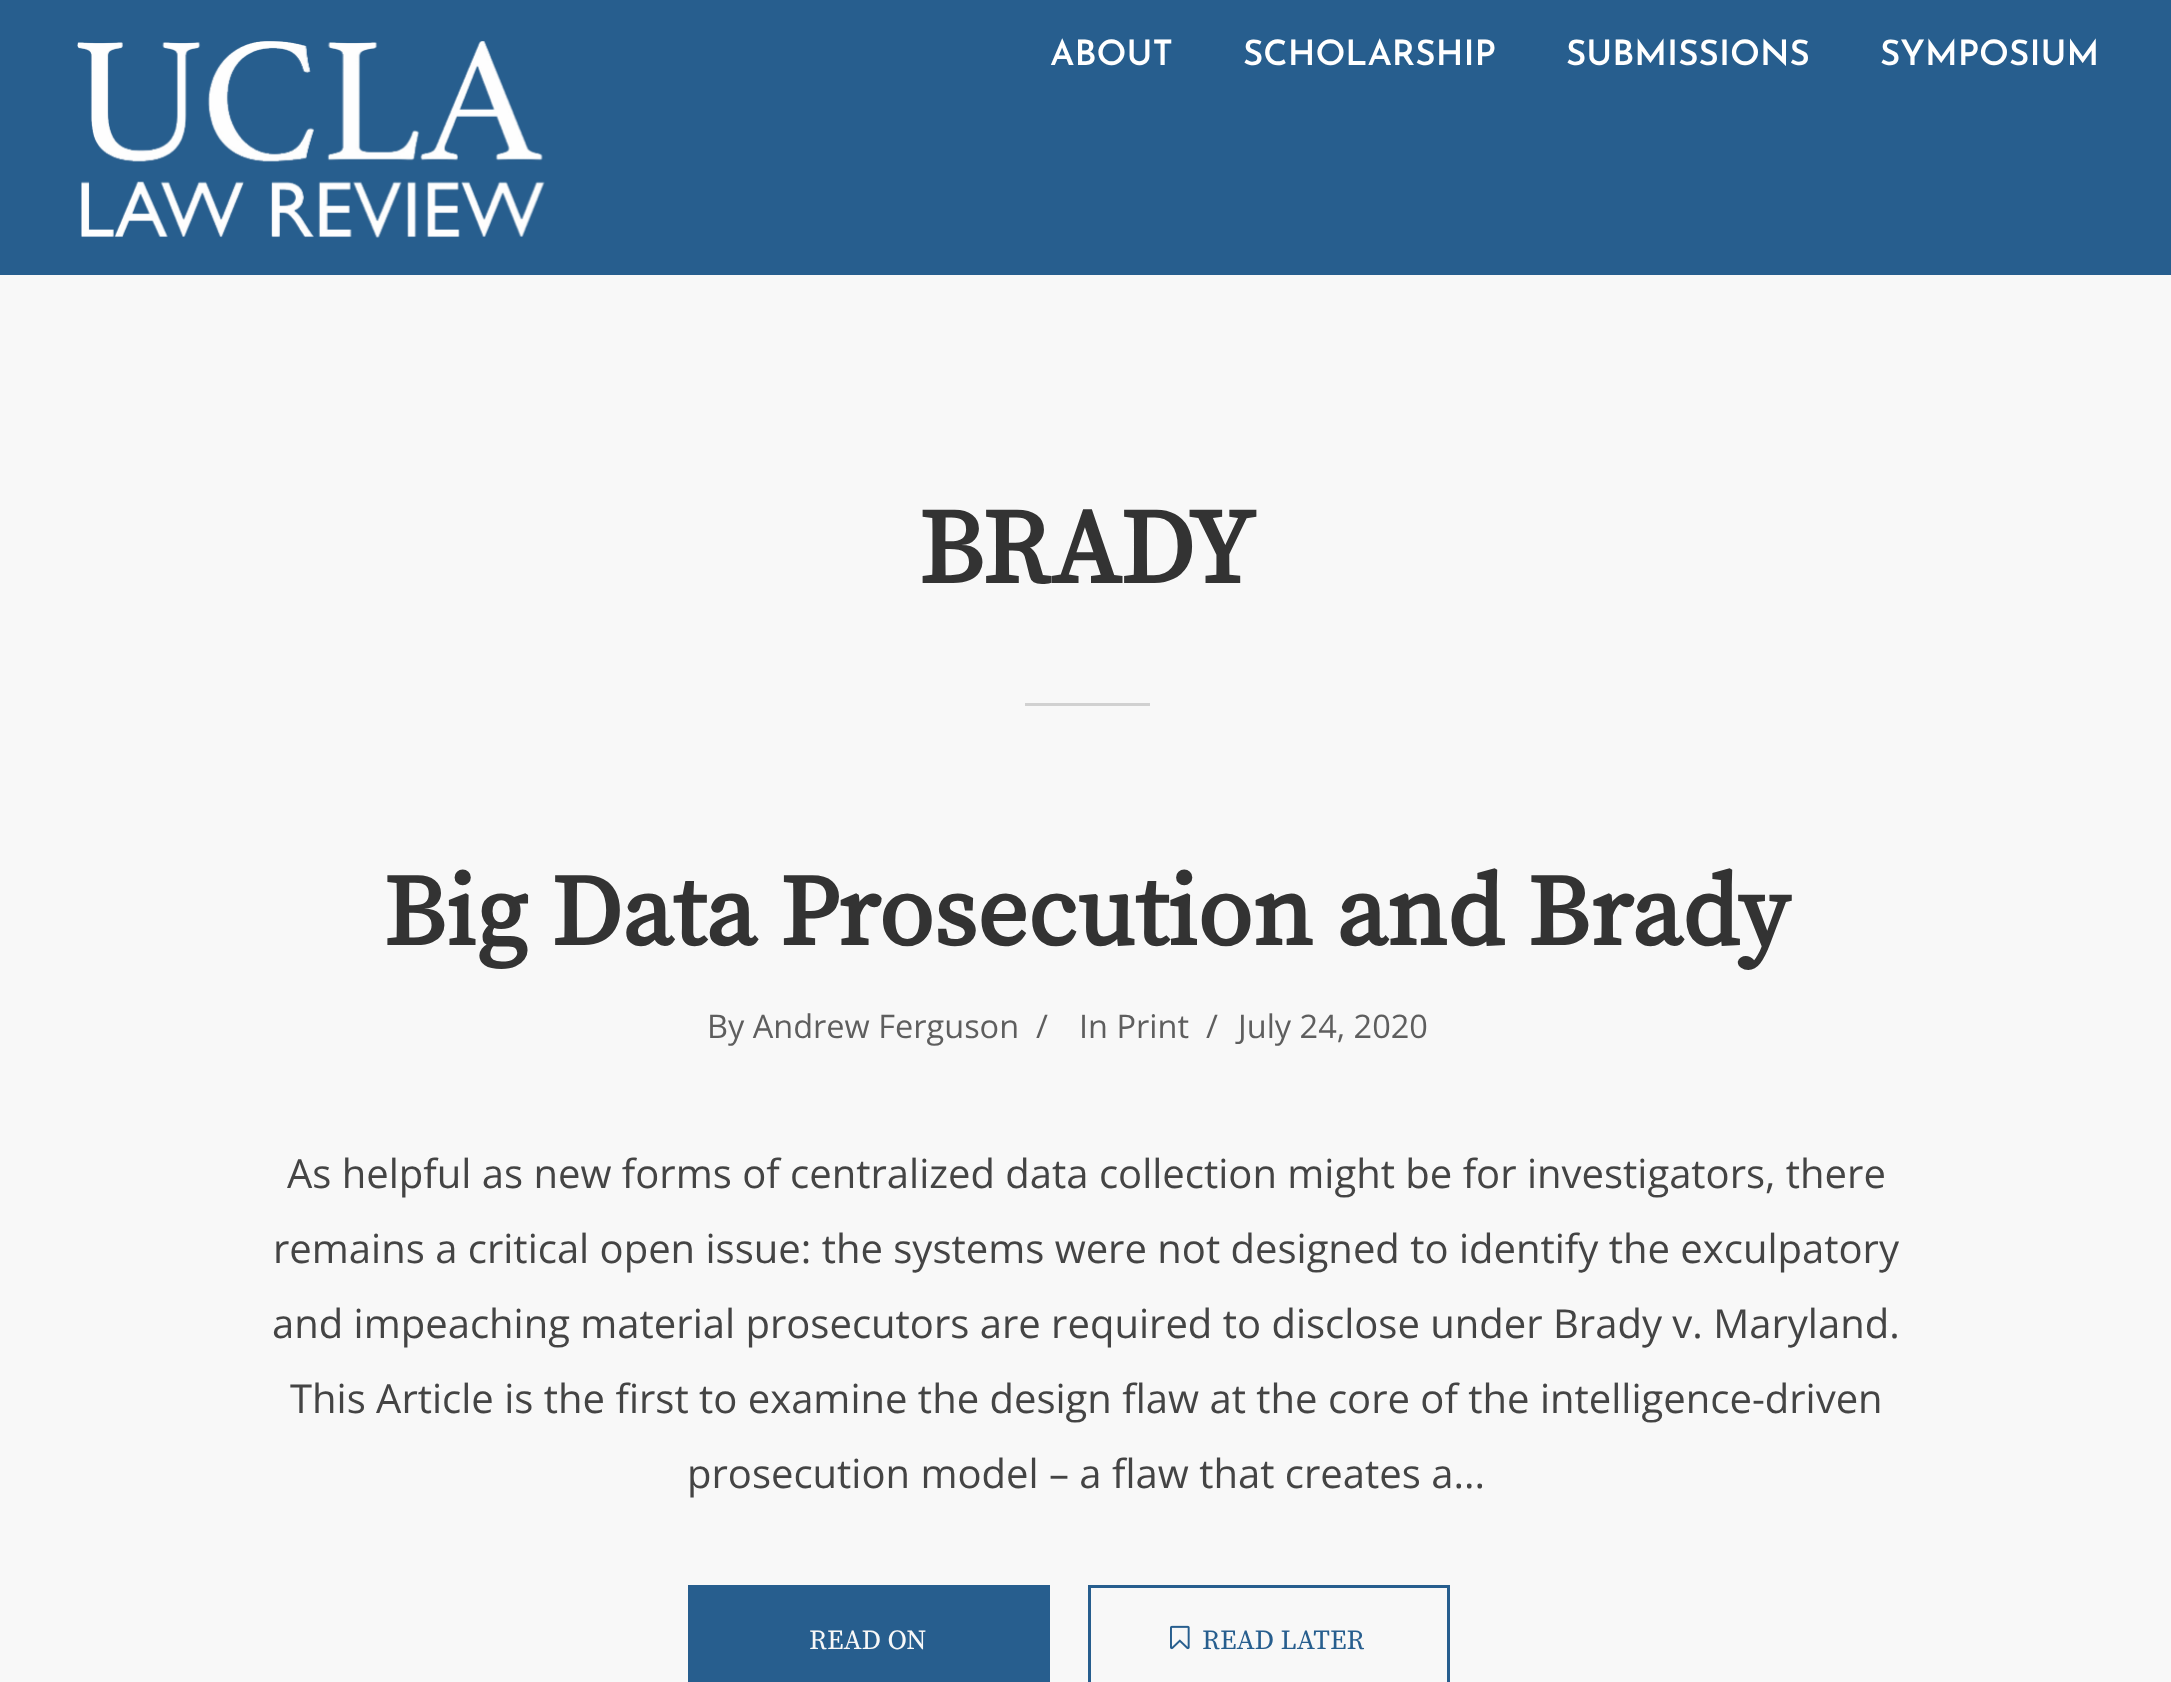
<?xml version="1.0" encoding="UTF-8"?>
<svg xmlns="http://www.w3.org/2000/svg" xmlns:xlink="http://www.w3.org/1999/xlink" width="2171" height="1682">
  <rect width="100%" height="100%" fill="#f8f8f8" />
  <rect width="2171" height="275" fill="#275e8e" />
  <image x="77" y="41" width="468" height="197" xlink:href="image1.png" />
  <rect x="1025" y="703" width="125" height="3" fill="#d1d1d1" />
  <rect x="688" y="1585" width="362" height="97" fill="#275e8e" />
  <rect x="1089.5" y="1586.5" width="359" height="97" fill="none" stroke="#275e8e" stroke-width="3" />
  <image x="1170" y="1625" width="20" height="25" xlink:href="image2.png" />
  <text x="1050" y="65" style="font-family: Josefin Sans; font-size: 35px; font-weight: 600; fill: #ffffff">ABOUT</text>
  <text x="1243" y="65" style="font-family: Josefin Sans; font-size: 35px; font-weight: 600; fill: #ffffff">SCHOLARSHIP</text>
  <text x="1566" y="65" style="font-family: Josefin Sans; font-size: 35px; font-weight: 600; fill: #ffffff">SUBMISSIONS</text>
  <text x="1880" y="65" style="font-family: Josefin Sans; font-size: 35px; font-weight: 600; fill: #ffffff">SYMPOSIUM</text>
  <text x="918" y="583" style="font-family: Source Serif Pro; font-size: 105px; font-weight: bold; fill: #333333">BRADY</text>
  <text x="383" y="945" style="font-family: Source Serif Pro; font-size: 100px; font-weight: bold; fill: #333333">Big Data Prosecution and Brady</text>
  <text x="707" y="1038" style="font-family: Open Sans; font-size: 32.5px; fill: #5e5e5e">By Andrew Ferguson</text>
  <text x="1036" y="1038" style="font-family: Open Sans; font-size: 32.5px; fill: #5e5e5e">/</text>
  <text x="1079" y="1038" style="font-family: Open Sans; font-size: 32.5px; fill: #5e5e5e">In Print</text>
  <text x="1206" y="1038" style="font-family: Open Sans; font-size: 32.5px; fill: #5e5e5e">/</text>
  <text x="1238" y="1038" style="font-family: Open Sans; font-size: 32.5px; fill: #5e5e5e">July 24, 2020</text>
  <text x="287" y="1188" style="font-family: Open Sans; font-size: 40px; fill: #444444">As helpful as new forms of centralized data collection might be for investigators, there</text>
  <text x="273" y="1263" style="font-family: Open Sans; font-size: 40px; fill: #444444">remains a critical open issue: the systems were not designed to identify the exculpatory</text>
  <text x="272" y="1338" style="font-family: Open Sans; font-size: 40px; fill: #444444">and impeaching material prosecutors are required to disclose under Brady v. Maryland.</text>
  <text x="290" y="1413" style="font-family: Open Sans; font-size: 40px; fill: #444444">This Article is the first to examine the design flaw at the core of the intelligence-driven</text>
  <text x="687" y="1488" style="font-family: Open Sans; font-size: 40px; fill: #444444">prosecution model – a flaw that creates a...</text>
  <text x="809" y="1649" style="font-family: Source Serif Pro; font-size: 27.5px; fill: #f8f8f8">READ ON</text>
  <text x="1202" y="1649" style="font-family: Source Serif Pro; font-size: 27.5px; fill: #275e8e">READ LATER</text>
</svg>
